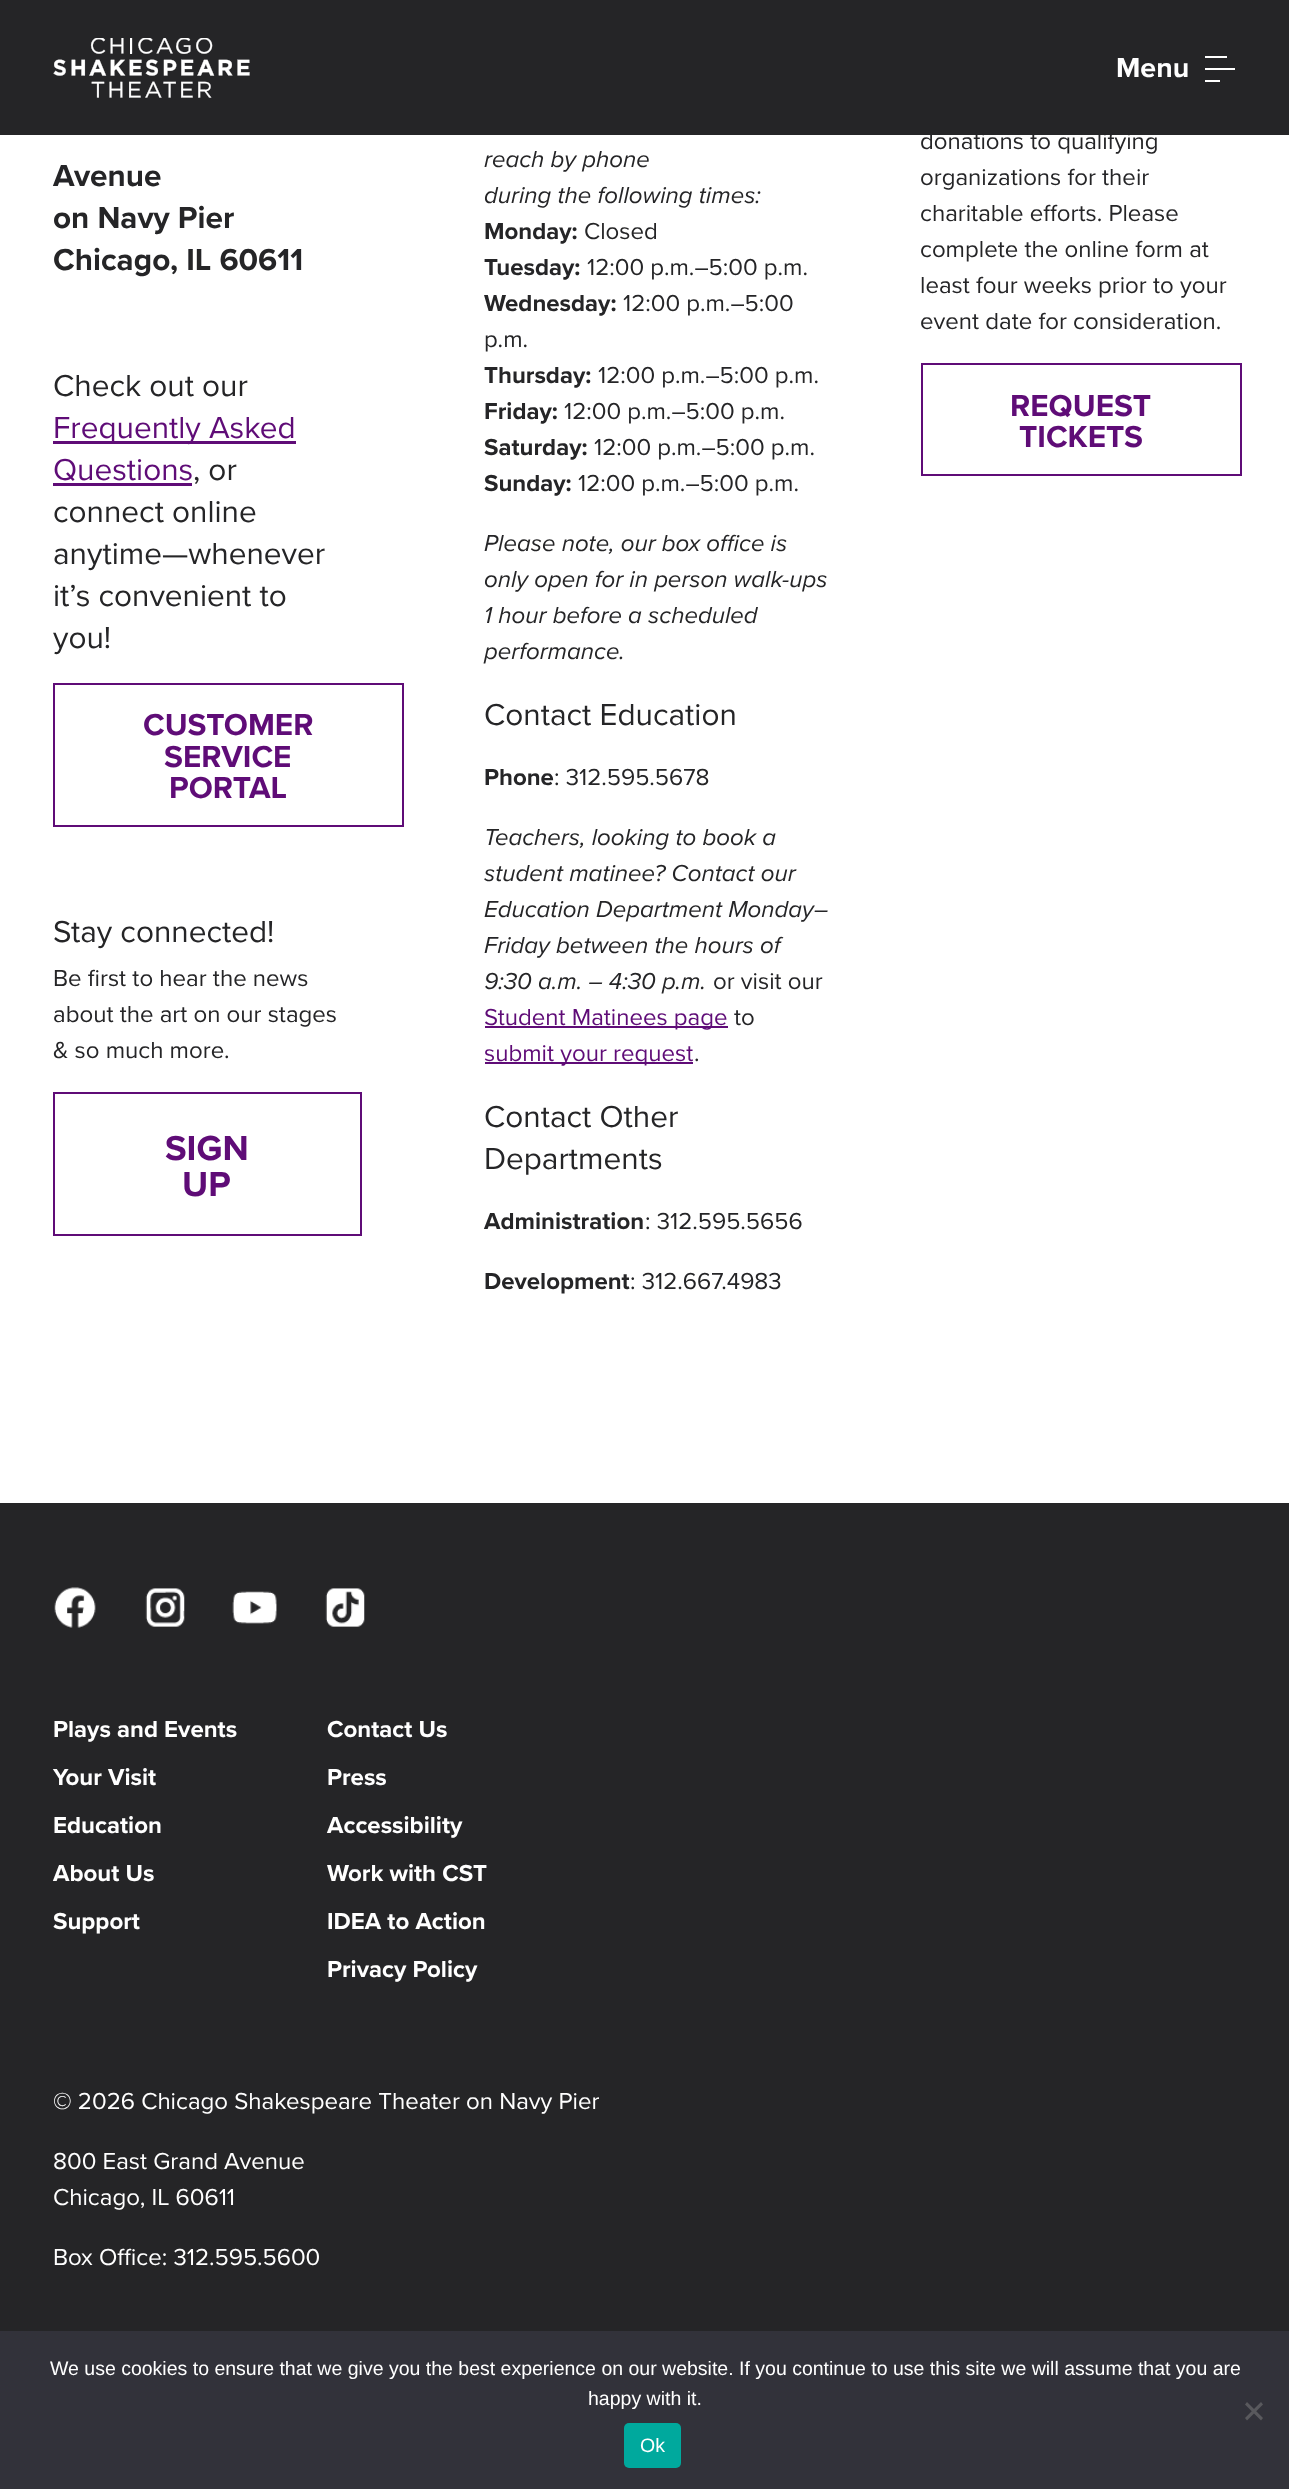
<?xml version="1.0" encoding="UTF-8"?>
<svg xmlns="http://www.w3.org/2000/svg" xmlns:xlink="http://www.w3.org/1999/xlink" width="1289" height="2489">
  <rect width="100%" height="100%" fill="#ffffff" />
  <rect width="1289" height="135" fill="#252527" />
  <image x="53" y="38" width="197" height="60" xlink:href="image1.png" />
  <rect x="1205" y="56" width="22" height="2" fill="#ffffff" />
  <rect x="1205" y="68" width="30" height="2" fill="#ffffff" />
  <rect x="1205" y="80" width="15" height="2" fill="#ffffff" />
  <rect x="53" y="441" width="243" height="3" fill="#5f0c77" />
  <rect x="53" y="483" width="139" height="3" fill="#5f0c77" />
  <rect x="54" y="684" width="349" height="142" fill="none" stroke="#5f0c77" stroke-width="2" />
  <rect x="54" y="1093" width="307" height="142" fill="none" stroke="#5f0c77" stroke-width="2" />
  <rect x="485" y="1026" width="243" height="2" fill="#5f0c77" />
  <rect x="485" y="1062" width="208" height="2" fill="#5f0c77" />
  <rect x="922" y="364" width="319" height="111" fill="none" stroke="#5f0c77" stroke-width="2" />
  <rect y="1503" width="1289" height="828" fill="#252527" />
  <image x="54" y="1587" width="42" height="41" xlink:href="image2.png" />
  <image x="145" y="1588" width="40" height="39" xlink:href="image3.png" />
  <image x="232" y="1591" width="45" height="33" xlink:href="image4.png" />
  <image x="325" y="1588" width="40" height="39" xlink:href="image5.png" />
  <rect y="2331" width="1289" height="158" fill="#32323a" />
  <path d="M 1261 2402 l 2 2.5 l -16 16 l -2 -2.5 z" fill="#59595d" />
  <path d="M 1245 2404.5 l 2 -2.5 l 16 16 l -2 2.5 z" fill="#59595d" />
  <rect x="624" y="2423" width="57" height="45" rx="5" fill="#00a99d" />
  <text x="1116" y="77" style="font-family: Proxima Nova; font-size: 28.5px; font-weight: bold; fill: #ffffff">Menu</text>
  <text x="53" y="186" style="font-family: Proxima Nova; font-size: 31.5px; font-weight: bold; fill: #252527">Avenue</text>
  <text x="53" y="228" style="font-family: Proxima Nova; font-size: 31.5px; font-weight: bold; fill: #252527">on Navy Pier</text>
  <text x="53" y="270" style="font-family: Proxima Nova; font-size: 31.5px; font-weight: bold; fill: #252527">Chicago, IL 60611</text>
  <text x="53" y="396" style="font-family: Proxima Nova; font-size: 31.5px; fill: #252527">Check out our</text>
  <text x="53" y="438" style="font-family: Proxima Nova; font-size: 31.5px; fill: #5f0c77">Frequently Asked</text>
  <text x="53" y="480" style="font-family: Proxima Nova; font-size: 31.5px; fill: #5f0c77">Questions</text>
  <text x="193" y="480" style="font-family: Proxima Nova; font-size: 31.5px; fill: #252527">, or</text>
  <text x="53" y="522" style="font-family: Proxima Nova; font-size: 31.5px; fill: #252527">connect online</text>
  <text x="53" y="564" style="font-family: Proxima Nova; font-size: 31.5px; fill: #252527">anytime—whenever</text>
  <text x="53" y="606" style="font-family: Proxima Nova; font-size: 31.5px; fill: #252527">it’s convenient to</text>
  <text x="53" y="648" style="font-family: Proxima Nova; font-size: 31.5px; fill: #252527">you!</text>
  <text x="143" y="735" style="font-family: Proxima Nova; font-size: 31.5px; font-weight: bold; fill: #5f0c77">CUSTOMER</text>
  <text x="164" y="767" style="font-family: Proxima Nova; font-size: 31.5px; font-weight: bold; fill: #5f0c77">SERVICE</text>
  <text x="169" y="798" style="font-family: Proxima Nova; font-size: 31.5px; font-weight: bold; fill: #5f0c77">PORTAL</text>
  <text x="53" y="942" style="font-family: Proxima Nova; font-size: 31.5px; fill: #252527">Stay connected!</text>
  <text x="53" y="986" style="font-family: Proxima Nova; font-size: 24px; fill: #252527">Be first to hear the news</text>
  <text x="53" y="1022" style="font-family: Proxima Nova; font-size: 24px; fill: #252527">about the art on our stages</text>
  <text x="53" y="1058" style="font-family: Proxima Nova; font-size: 24px; fill: #252527">&amp; so much more.</text>
  <text x="165" y="1160" style="font-family: Proxima Nova; font-size: 36px; font-weight: bold; fill: #5f0c77">SIGN</text>
  <text x="182" y="1196" style="font-family: Proxima Nova; font-size: 36px; font-weight: bold; fill: #5f0c77">UP</text>
  <text x="484" y="167" style="font-family: Proxima Nova; font-size: 24px; font-style: italic; fill: #252527">reach by phone</text>
  <text x="484" y="203" style="font-family: Proxima Nova; font-size: 24px; font-style: italic; fill: #252527">during the following times:</text>
  <text x="484" y="239" style="font-family: Proxima Nova; font-size: 24px; font-weight: bold; fill: #252527">Monday:</text>
  <text x="584" y="239" style="font-family: Proxima Nova; font-size: 24px; fill: #252527">Closed</text>
  <text x="484" y="275" style="font-family: Proxima Nova; font-size: 24px; font-weight: bold; fill: #252527">Tuesday:</text>
  <text x="587" y="275" style="font-family: Proxima Nova; font-size: 24px; fill: #252527">12:00 p.m.–5:00 p.m.</text>
  <text x="484" y="311" style="font-family: Proxima Nova; font-size: 24px; font-weight: bold; fill: #252527">Wednesday:</text>
  <text x="623" y="311" style="font-family: Proxima Nova; font-size: 24px; fill: #252527">12:00 p.m.–5:00</text>
  <text x="484" y="347" style="font-family: Proxima Nova; font-size: 24px; fill: #252527">p.m.</text>
  <text x="484" y="383" style="font-family: Proxima Nova; font-size: 24px; font-weight: bold; fill: #252527">Thursday:</text>
  <text x="598" y="383" style="font-family: Proxima Nova; font-size: 24px; fill: #252527">12:00 p.m.–5:00 p.m.</text>
  <text x="484" y="419" style="font-family: Proxima Nova; font-size: 24px; font-weight: bold; fill: #252527">Friday:</text>
  <text x="564" y="419" style="font-family: Proxima Nova; font-size: 24px; fill: #252527">12:00 p.m.–5:00 p.m.</text>
  <text x="484" y="455" style="font-family: Proxima Nova; font-size: 24px; font-weight: bold; fill: #252527">Saturday:</text>
  <text x="594" y="455" style="font-family: Proxima Nova; font-size: 24px; fill: #252527">12:00 p.m.–5:00 p.m.</text>
  <text x="484" y="491" style="font-family: Proxima Nova; font-size: 24px; font-weight: bold; fill: #252527">Sunday:</text>
  <text x="578" y="491" style="font-family: Proxima Nova; font-size: 24px; fill: #252527">12:00 p.m.–5:00 p.m.</text>
  <text x="484" y="551" style="font-family: Proxima Nova; font-size: 24px; font-style: italic; fill: #252527">Please note, our box office is</text>
  <text x="484" y="587" style="font-family: Proxima Nova; font-size: 24px; font-style: italic; fill: #252527">only open for in person walk-ups</text>
  <text x="484" y="623" style="font-family: Proxima Nova; font-size: 24px; font-style: italic; fill: #252527">1 hour before a scheduled</text>
  <text x="484" y="659" style="font-family: Proxima Nova; font-size: 24px; font-style: italic; fill: #252527">performance.</text>
  <text x="484" y="725" style="font-family: Proxima Nova; font-size: 31.5px; fill: #252527">Contact Education</text>
  <text x="484" y="785" style="font-family: Proxima Nova; font-size: 24px; font-weight: bold; fill: #252527">Phone</text>
  <text x="554" y="785" style="font-family: Proxima Nova; font-size: 24px; fill: #252527">: 312.595.5678</text>
  <text x="484" y="845" style="font-family: Proxima Nova; font-size: 24px; font-style: italic; fill: #252527">Teachers, looking to book a</text>
  <text x="484" y="881" style="font-family: Proxima Nova; font-size: 24px; font-style: italic; fill: #252527">student matinee? Contact our</text>
  <text x="484" y="917" style="font-family: Proxima Nova; font-size: 24px; font-style: italic; fill: #252527">Education Department Monday–</text>
  <text x="484" y="953" style="font-family: Proxima Nova; font-size: 24px; font-style: italic; fill: #252527">Friday between the hours of</text>
  <text x="484" y="989" style="font-family: Proxima Nova; font-size: 24px; font-style: italic; fill: #252527">9:30 a.m. – 4:30 p.m.</text>
  <text x="713" y="989" style="font-family: Proxima Nova; font-size: 24px; fill: #252527">or visit our</text>
  <text x="484" y="1025" style="font-family: Proxima Nova; font-size: 24px; fill: #5f0c77">Student Matinees page</text>
  <text x="734" y="1025" style="font-family: Proxima Nova; font-size: 24px; fill: #252527">to</text>
  <text x="484" y="1061" style="font-family: Proxima Nova; font-size: 24px; fill: #5f0c77">submit your request</text>
  <text x="694" y="1061" style="font-family: Proxima Nova; font-size: 24px; fill: #252527">.</text>
  <text x="484" y="1127" style="font-family: Proxima Nova; font-size: 31.5px; fill: #252527">Contact Other</text>
  <text x="484" y="1169" style="font-family: Proxima Nova; font-size: 31.5px; fill: #252527">Departments</text>
  <text x="484" y="1229" style="font-family: Proxima Nova; font-size: 24px; font-weight: bold; fill: #252527">Administration</text>
  <text x="645" y="1229" style="font-family: Proxima Nova; font-size: 24px; fill: #252527">: 312.595.5656</text>
  <text x="484" y="1289" style="font-family: Proxima Nova; font-size: 24px; font-weight: bold; fill: #252527">Development</text>
  <text x="630" y="1289" style="font-family: Proxima Nova; font-size: 24px; fill: #252527">: 312.667.4983</text>
  <text x="920" y="149" style="font-family: Proxima Nova; font-size: 24px; fill: #252527">donations to qualifying</text>
  <text x="920" y="185" style="font-family: Proxima Nova; font-size: 24px; fill: #252527">organizations for their</text>
  <text x="920" y="221" style="font-family: Proxima Nova; font-size: 24px; fill: #252527">charitable efforts. Please</text>
  <text x="920" y="257" style="font-family: Proxima Nova; font-size: 24px; fill: #252527">complete the online form at</text>
  <text x="920" y="293" style="font-family: Proxima Nova; font-size: 24px; fill: #252527">least four weeks prior to your</text>
  <text x="920" y="329" style="font-family: Proxima Nova; font-size: 24px; fill: #252527">event date for consideration.</text>
  <text x="1010" y="416" style="font-family: Proxima Nova; font-size: 31.5px; font-weight: bold; fill: #5f0c77">REQUEST</text>
  <text x="1019" y="447" style="font-family: Proxima Nova; font-size: 31.5px; font-weight: bold; fill: #5f0c77">TICKETS</text>
  <text x="53" y="1737" style="font-family: Proxima Nova; font-size: 24px; font-weight: bold; fill: #ffffff">Plays and Events</text>
  <text x="53" y="1785" style="font-family: Proxima Nova; font-size: 24px; font-weight: bold; fill: #ffffff">Your Visit</text>
  <text x="53" y="1833" style="font-family: Proxima Nova; font-size: 24px; font-weight: bold; fill: #ffffff">Education</text>
  <text x="53" y="1881" style="font-family: Proxima Nova; font-size: 24px; font-weight: bold; fill: #ffffff">About Us</text>
  <text x="53" y="1929" style="font-family: Proxima Nova; font-size: 24px; font-weight: bold; fill: #ffffff">Support</text>
  <text x="327" y="1737" style="font-family: Proxima Nova; font-size: 24px; font-weight: bold; fill: #ffffff">Contact Us</text>
  <text x="327" y="1785" style="font-family: Proxima Nova; font-size: 24px; font-weight: bold; fill: #ffffff">Press</text>
  <text x="327" y="1833" style="font-family: Proxima Nova; font-size: 24px; font-weight: bold; fill: #ffffff">Accessibility</text>
  <text x="327" y="1881" style="font-family: Proxima Nova; font-size: 24px; font-weight: bold; fill: #ffffff">Work with CST</text>
  <text x="327" y="1929" style="font-family: Proxima Nova; font-size: 24px; font-weight: bold; fill: #ffffff">IDEA to Action</text>
  <text x="327" y="1977" style="font-family: Proxima Nova; font-size: 24px; font-weight: bold; fill: #ffffff">Privacy Policy</text>
  <text x="53" y="2109" style="font-family: Proxima Nova; font-size: 24px; fill: #ffffff">© 2026 Chicago Shakespeare Theater on Navy Pier</text>
  <text x="53" y="2169" style="font-family: Proxima Nova; font-size: 24px; fill: #ffffff">800 East Grand Avenue</text>
  <text x="53" y="2205" style="font-family: Proxima Nova; font-size: 24px; fill: #ffffff">Chicago, IL 60611</text>
  <text x="53" y="2265" style="font-family: Proxima Nova; font-size: 24px; fill: #ffffff">Box Office: 312.595.5600</text>
  <text x="50" y="2375" style="font-family: Liberation Sans; font-size: 19.5px; fill: #ffffff">We use cookies to ensure that we give you the best experience on our website. If you continue to use this site we will assume that you are</text>
  <text x="588" y="2405" style="font-family: Liberation Sans; font-size: 19.5px; fill: #ffffff">happy with it.</text>
  <text x="640" y="2452" style="font-family: Liberation Sans; font-size: 19.5px; fill: #ffffff">Ok</text>
</svg>
